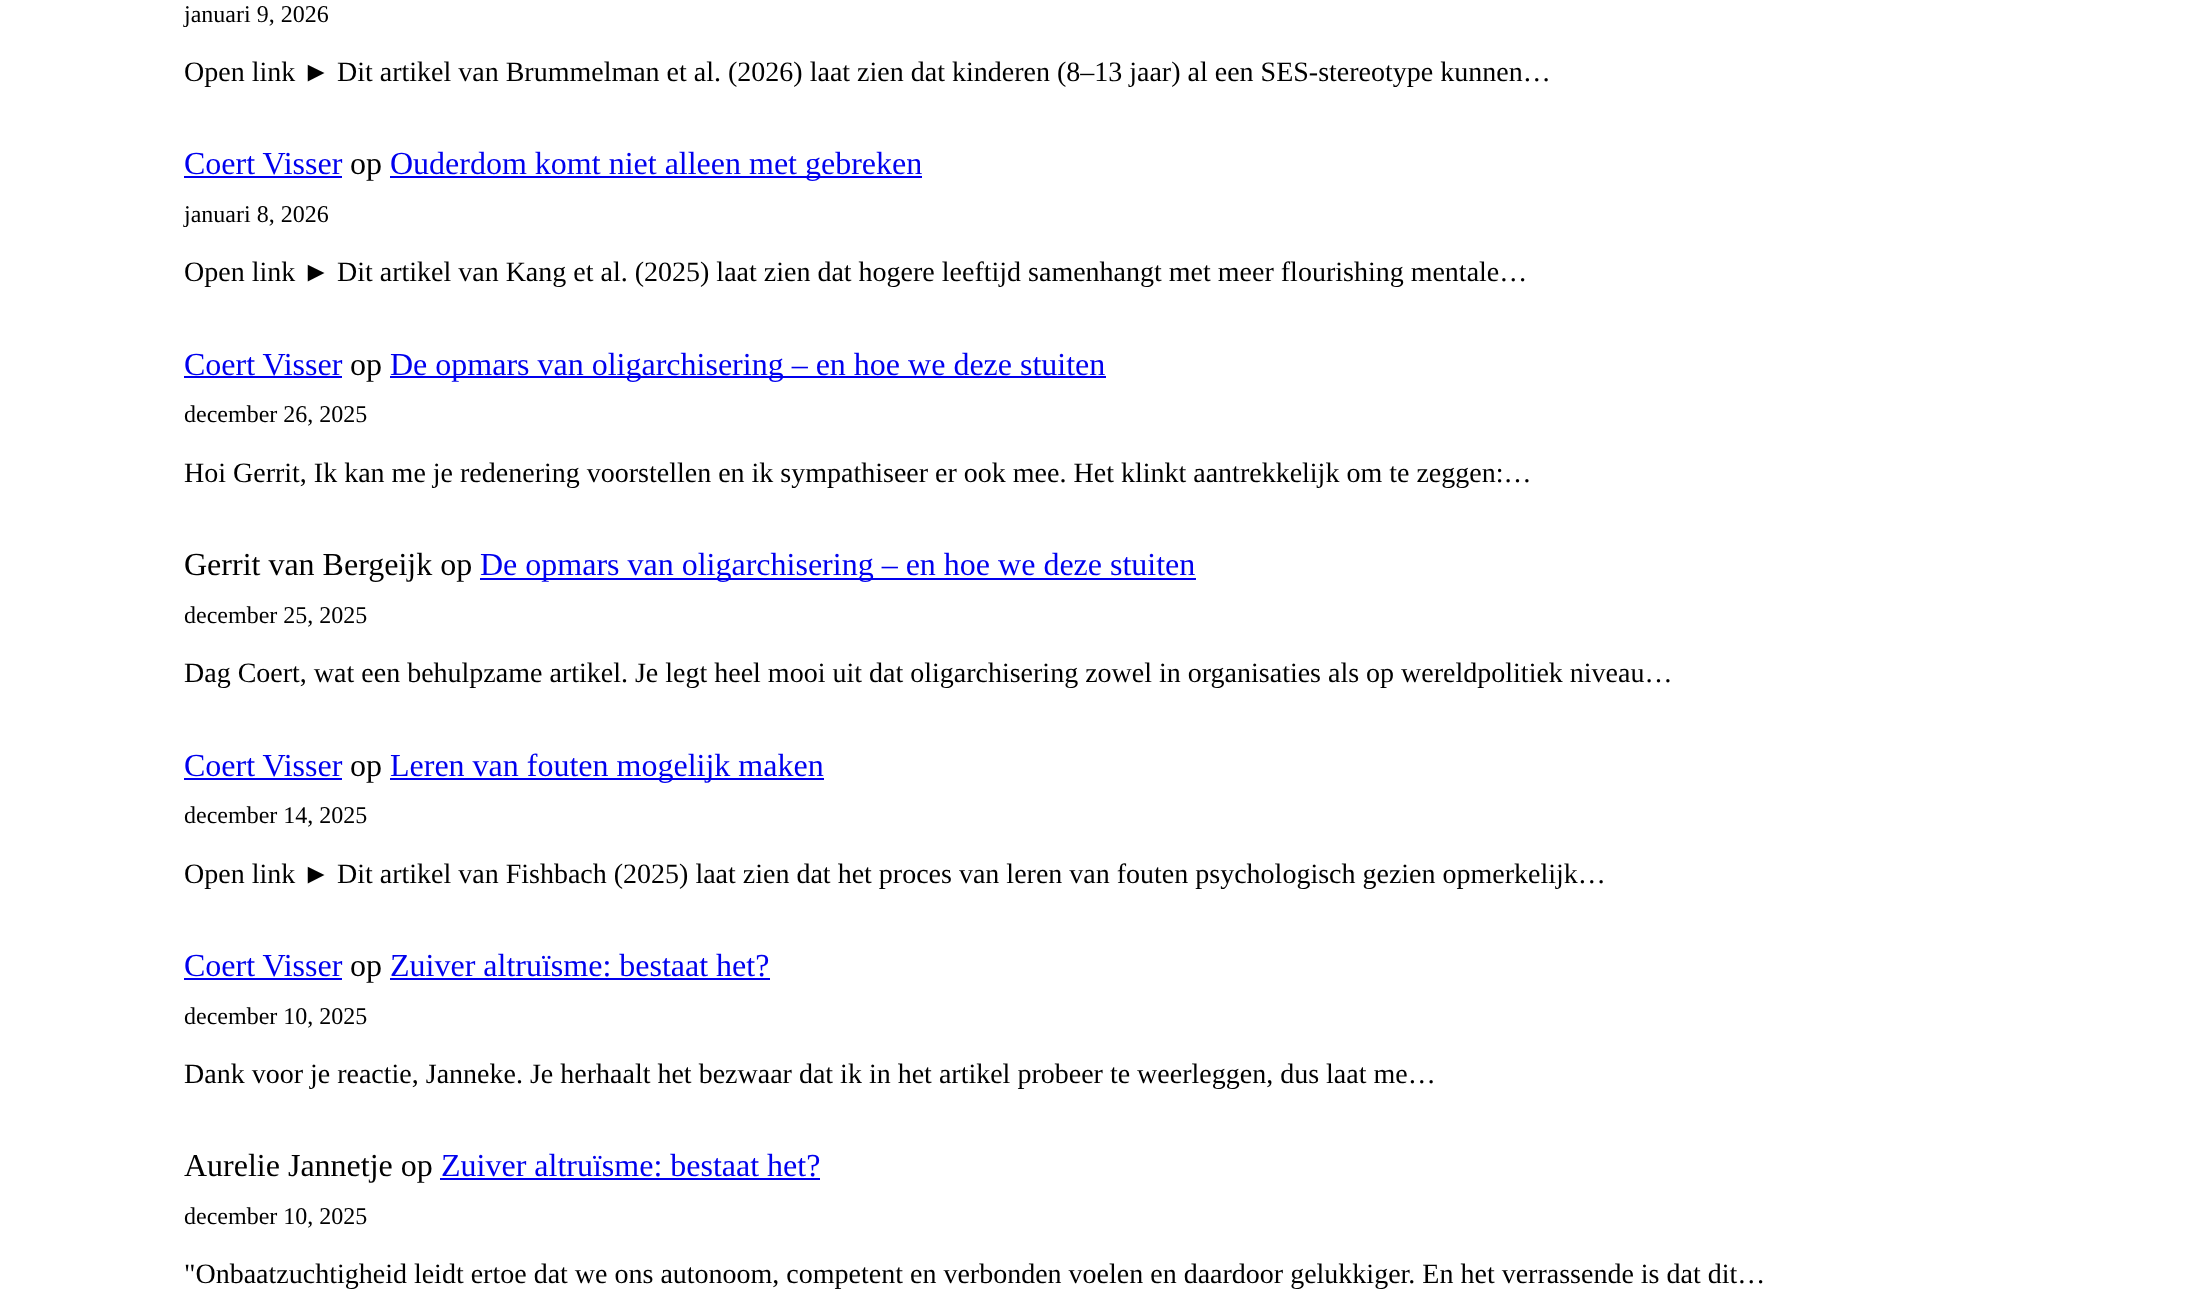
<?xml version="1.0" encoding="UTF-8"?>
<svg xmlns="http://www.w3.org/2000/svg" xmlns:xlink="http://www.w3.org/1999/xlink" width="2188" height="1314">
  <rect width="100%" height="100%" fill="#ffffff" />
  <rect x="184" y="176" width="158" height="2" fill="#0000ee" />
  <rect x="390" y="176" width="532" height="2" fill="#0000ee" />
  <rect x="184" y="376" width="158" height="2" fill="#0000ee" />
  <rect x="390" y="376" width="716" height="2" fill="#0000ee" />
  <rect x="480" y="578" width="716" height="2" fill="#0000ee" />
  <rect x="184" y="778" width="158" height="2" fill="#0000ee" />
  <rect x="390" y="778" width="434" height="2" fill="#0000ee" />
  <rect x="184" y="978" width="158" height="2" fill="#0000ee" />
  <rect x="390" y="978" width="380" height="2" fill="#0000ee" />
  <rect x="440" y="1178" width="380" height="2" fill="#0000ee" />
  <text x="184" y="22" style="font-family: Liberation Serif; font-size: 24px; fill: #000000">januari 9, 2026</text>
  <text x="184" y="81" style="font-family: Liberation Serif; font-size: 28px; fill: #000000">Open link ► Dit artikel van Brummelman et al. (2026) laat zien dat kinderen (8–13 jaar) al een SES-stereotype kunnen…</text>
  <text x="184" y="174" style="font-family: Liberation Serif; font-size: 32px; fill: #0000ee">Coert Visser</text>
  <text x="350" y="174" style="font-family: Liberation Serif; font-size: 32px; fill: #000000">op</text>
  <text x="390" y="174" style="font-family: Liberation Serif; font-size: 32px; fill: #0000ee">Ouderdom komt niet alleen met gebreken</text>
  <text x="184" y="222" style="font-family: Liberation Serif; font-size: 24px; fill: #000000">januari 8, 2026</text>
  <text x="184" y="281" style="font-family: Liberation Serif; font-size: 28px; fill: #000000">Open link ► Dit artikel van Kang et al. (2025) laat zien dat hogere leeftijd samenhangt met meer flourishing mentale…</text>
  <text x="184" y="375" style="font-family: Liberation Serif; font-size: 32px; fill: #0000ee">Coert Visser</text>
  <text x="350" y="375" style="font-family: Liberation Serif; font-size: 32px; fill: #000000">op</text>
  <text x="390" y="375" style="font-family: Liberation Serif; font-size: 32px; fill: #0000ee">De opmars van oligarchisering – en hoe we deze stuiten</text>
  <text x="184" y="422" style="font-family: Liberation Serif; font-size: 24px; fill: #000000">december 26, 2025</text>
  <text x="184" y="482" style="font-family: Liberation Serif; font-size: 28px; fill: #000000">Hoi Gerrit, Ik kan me je redenering voorstellen en ik sympathiseer er ook mee. Het klinkt aantrekkelijk om te zeggen:…</text>
  <text x="184" y="575" style="font-family: Liberation Serif; font-size: 32px; fill: #000000">Gerrit van Bergeijk op</text>
  <text x="480" y="575" style="font-family: Liberation Serif; font-size: 32px; fill: #0000ee">De opmars van oligarchisering – en hoe we deze stuiten</text>
  <text x="184" y="623" style="font-family: Liberation Serif; font-size: 24px; fill: #000000">december 25, 2025</text>
  <text x="184" y="682" style="font-family: Liberation Serif; font-size: 28px; fill: #000000">Dag Coert, wat een behulpzame artikel. Je legt heel mooi uit dat oligarchisering zowel in organisaties als op wereldpolitiek niveau…</text>
  <text x="184" y="776" style="font-family: Liberation Serif; font-size: 32px; fill: #0000ee">Coert Visser</text>
  <text x="350" y="776" style="font-family: Liberation Serif; font-size: 32px; fill: #000000">op</text>
  <text x="390" y="776" style="font-family: Liberation Serif; font-size: 32px; fill: #0000ee">Leren van fouten mogelijk maken</text>
  <text x="184" y="823" style="font-family: Liberation Serif; font-size: 24px; fill: #000000">december 14, 2025</text>
  <text x="184" y="883" style="font-family: Liberation Serif; font-size: 28px; fill: #000000">Open link ► Dit artikel van Fishbach (2025) laat zien dat het proces van leren van fouten psychologisch gezien opmerkelijk…</text>
  <text x="184" y="976" style="font-family: Liberation Serif; font-size: 32px; fill: #0000ee">Coert Visser</text>
  <text x="350" y="976" style="font-family: Liberation Serif; font-size: 32px; fill: #000000">op</text>
  <text x="390" y="976" style="font-family: Liberation Serif; font-size: 32px; fill: #0000ee">Zuiver altruïsme: bestaat het?</text>
  <text x="184" y="1024" style="font-family: Liberation Serif; font-size: 24px; fill: #000000">december 10, 2025</text>
  <text x="184" y="1083" style="font-family: Liberation Serif; font-size: 28px; fill: #000000">Dank voor je reactie, Janneke. Je herhaalt het bezwaar dat ik in het artikel probeer te weerleggen, dus laat me…</text>
  <text x="184" y="1176" style="font-family: Liberation Serif; font-size: 32px; fill: #000000">Aurelie Jannetje op</text>
  <text x="441" y="1176" style="font-family: Liberation Serif; font-size: 32px; fill: #0000ee">Zuiver altruïsme: bestaat het?</text>
  <text x="184" y="1224" style="font-family: Liberation Serif; font-size: 24px; fill: #000000">december 10, 2025</text>
  <text x="184" y="1283" style="font-family: Liberation Serif; font-size: 28px; fill: #000000">"Onbaatzuchtigheid leidt ertoe dat we ons autonoom, competent en verbonden voelen en daardoor gelukkiger. En het verrassende is dat dit…</text>
</svg>
